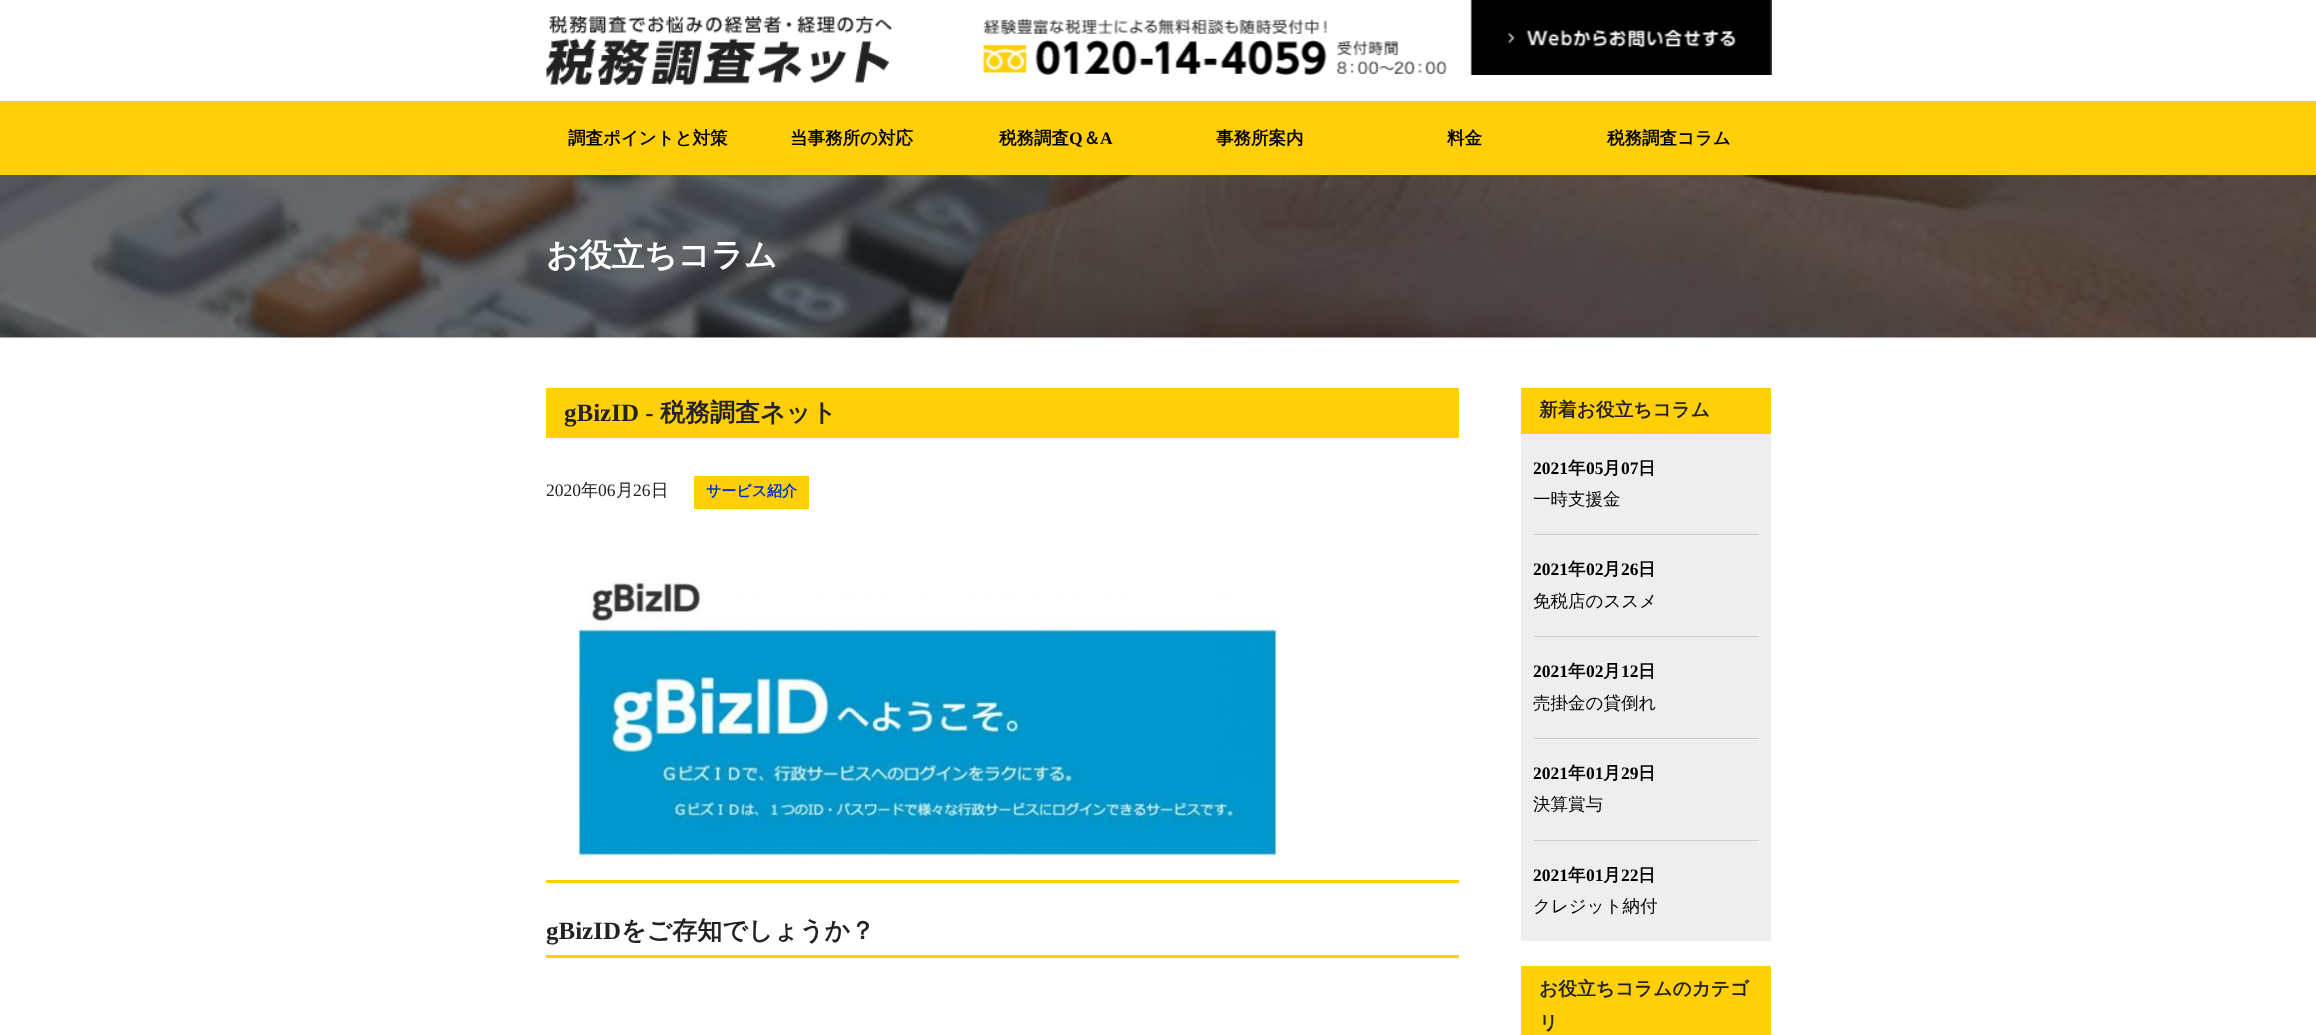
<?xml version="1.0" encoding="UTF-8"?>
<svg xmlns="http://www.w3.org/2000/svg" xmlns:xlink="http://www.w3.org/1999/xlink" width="2316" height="1035">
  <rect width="100%" height="100%" fill="#ffffff" />
  <image x="546" y="16" width="347" height="69" xlink:href="image1.png" />
  <image x="983" y="18" width="464" height="57" xlink:href="image2.png" />
  <image x="1470" y="0" width="302" height="75" xlink:href="image3.png" />
  <rect y="101" width="2316" height="74" fill="#ffcf07" />
  <image x="0" y="175" width="2316" height="163" xlink:href="image4.png" />
  <rect x="546" y="388" width="913" height="50" fill="#ffcf07" />
  <rect x="694" y="476" width="115" height="33" fill="#ffcf07" />
  <rect x="546" y="880" width="913" height="3" fill="#ffcf07" />
  <image x="577" y="579" width="701" height="279" xlink:href="image5.png" />
  <rect x="546" y="955" width="913" height="3" fill="#ffcf07" />
  <rect x="1521" y="388" width="250" height="46" fill="#ffcf07" />
  <rect x="1521" y="434" width="250" height="507" fill="#eeeeee" />
  <rect x="1534" y="534" width="225" height="1" fill="#cccccc" />
  <rect x="1534" y="636" width="225" height="1" fill="#cccccc" />
  <rect x="1534" y="738" width="225" height="1" fill="#cccccc" />
  <rect x="1534" y="840" width="225" height="1" fill="#cccccc" />
  <rect x="1521" y="966" width="250" height="69" fill="#ffcf07" />
  <text x="568" y="144" style="font-family: WenQuanYi Zen Hei; font-size: 17.5px; font-weight: bold; fill: #000000">調査ポイントと対策</text>
  <text x="790" y="144" style="font-family: WenQuanYi Zen Hei; font-size: 17.5px; font-weight: bold; fill: #000000">当事務所の対応</text>
  <text x="999" y="144" style="font-family: WenQuanYi Zen Hei; font-size: 17.5px; font-weight: bold; fill: #000000">税務調査</text>
  <text x="1069" y="144" style="font-family: Liberation Serif; font-size: 17.5px; font-weight: bold; fill: #000000">Q</text>
  <text x="1083" y="144" style="font-family: WenQuanYi Zen Hei; font-size: 17.5px; font-weight: bold; fill: #000000">＆</text>
  <text x="1100" y="144" style="font-family: Liberation Serif; font-size: 17.5px; font-weight: bold; fill: #000000">A</text>
  <text x="1216" y="144" style="font-family: WenQuanYi Zen Hei; font-size: 17.5px; font-weight: bold; fill: #000000">事務所案内</text>
  <text x="1447" y="144" style="font-family: WenQuanYi Zen Hei; font-size: 17.5px; font-weight: bold; fill: #000000">料金</text>
  <text x="1607" y="144" style="font-family: WenQuanYi Zen Hei; font-size: 17.5px; font-weight: bold; fill: #000000">税務調査コラム</text>
  <text x="546" y="266" style="font-family: WenQuanYi Zen Hei; font-size: 32.5px; font-weight: bold; fill: #ffffff">お役立ちコラム</text>
  <text x="564" y="421" style="font-family: Liberation Serif; font-size: 25px; font-weight: bold; fill: #222222">gBizID -</text>
  <text x="660" y="421" style="font-family: WenQuanYi Zen Hei; font-size: 25px; font-weight: bold; fill: #222222">税務調査ネット</text>
  <text x="546" y="496" style="font-family: Liberation Serif; font-size: 17.5px; fill: #222222">2020</text>
  <text x="581" y="496" style="font-family: WenQuanYi Zen Hei; font-size: 17.5px; font-weight: 500; fill: #222222">年</text>
  <text x="598" y="496" style="font-family: Liberation Serif; font-size: 17.5px; fill: #222222">06</text>
  <text x="616" y="496" style="font-family: WenQuanYi Zen Hei; font-size: 17.5px; font-weight: 500; fill: #222222">月</text>
  <text x="633" y="496" style="font-family: Liberation Serif; font-size: 17.5px; fill: #222222">26</text>
  <text x="651" y="496" style="font-family: WenQuanYi Zen Hei; font-size: 17.5px; font-weight: 500; fill: #222222">日</text>
  <text x="706" y="496" style="font-family: WenQuanYi Zen Hei; font-size: 15px; font-weight: bold; fill: #0033cc">サービス紹介</text>
  <text x="546" y="939" style="font-family: Liberation Serif; font-size: 25px; font-weight: bold; fill: #222222">gBizID</text>
  <text x="621" y="939" style="font-family: WenQuanYi Zen Hei; font-size: 25px; font-weight: bold; fill: #222222">をご存知でしょうか？</text>
  <text x="1539" y="416" style="font-family: WenQuanYi Zen Hei; font-size: 18.75px; font-weight: bold; fill: #222222">新着お役立ちコラム</text>
  <text x="1533" y="474" style="font-family: Liberation Serif; font-size: 17.5px; font-weight: bold; fill: #000000">2021</text>
  <text x="1568" y="474" style="font-family: WenQuanYi Zen Hei; font-size: 17.5px; font-weight: bold; fill: #000000">年</text>
  <text x="1586" y="474" style="font-family: Liberation Serif; font-size: 17.5px; font-weight: bold; fill: #000000">05</text>
  <text x="1603" y="474" style="font-family: WenQuanYi Zen Hei; font-size: 17.5px; font-weight: bold; fill: #000000">月</text>
  <text x="1621" y="474" style="font-family: Liberation Serif; font-size: 17.5px; font-weight: bold; fill: #000000">07</text>
  <text x="1638" y="474" style="font-family: WenQuanYi Zen Hei; font-size: 17.5px; font-weight: bold; fill: #000000">日</text>
  <text x="1533" y="505" style="font-family: WenQuanYi Zen Hei; font-size: 17.5px; font-weight: 500; fill: #000000">一時支援金</text>
  <text x="1533" y="575" style="font-family: Liberation Serif; font-size: 17.5px; font-weight: bold; fill: #000000">2021</text>
  <text x="1568" y="575" style="font-family: WenQuanYi Zen Hei; font-size: 17.5px; font-weight: bold; fill: #000000">年</text>
  <text x="1586" y="575" style="font-family: Liberation Serif; font-size: 17.5px; font-weight: bold; fill: #000000">02</text>
  <text x="1603" y="575" style="font-family: WenQuanYi Zen Hei; font-size: 17.5px; font-weight: bold; fill: #000000">月</text>
  <text x="1621" y="575" style="font-family: Liberation Serif; font-size: 17.5px; font-weight: bold; fill: #000000">26</text>
  <text x="1638" y="575" style="font-family: WenQuanYi Zen Hei; font-size: 17.5px; font-weight: bold; fill: #000000">日</text>
  <text x="1533" y="607" style="font-family: WenQuanYi Zen Hei; font-size: 17.5px; font-weight: 500; fill: #000000">免税店のススメ</text>
  <text x="1533" y="677" style="font-family: Liberation Serif; font-size: 17.5px; font-weight: bold; fill: #000000">2021</text>
  <text x="1568" y="677" style="font-family: WenQuanYi Zen Hei; font-size: 17.5px; font-weight: bold; fill: #000000">年</text>
  <text x="1586" y="677" style="font-family: Liberation Serif; font-size: 17.5px; font-weight: bold; fill: #000000">02</text>
  <text x="1603" y="677" style="font-family: WenQuanYi Zen Hei; font-size: 17.5px; font-weight: bold; fill: #000000">月</text>
  <text x="1621" y="677" style="font-family: Liberation Serif; font-size: 17.5px; font-weight: bold; fill: #000000">12</text>
  <text x="1638" y="677" style="font-family: WenQuanYi Zen Hei; font-size: 17.5px; font-weight: bold; fill: #000000">日</text>
  <text x="1533" y="709" style="font-family: WenQuanYi Zen Hei; font-size: 17.5px; font-weight: 500; fill: #000000">売掛金の貸倒れ</text>
  <text x="1533" y="779" style="font-family: Liberation Serif; font-size: 17.5px; font-weight: bold; fill: #000000">2021</text>
  <text x="1568" y="779" style="font-family: WenQuanYi Zen Hei; font-size: 17.5px; font-weight: bold; fill: #000000">年</text>
  <text x="1586" y="779" style="font-family: Liberation Serif; font-size: 17.5px; font-weight: bold; fill: #000000">01</text>
  <text x="1603" y="779" style="font-family: WenQuanYi Zen Hei; font-size: 17.5px; font-weight: bold; fill: #000000">月</text>
  <text x="1621" y="779" style="font-family: Liberation Serif; font-size: 17.5px; font-weight: bold; fill: #000000">29</text>
  <text x="1638" y="779" style="font-family: WenQuanYi Zen Hei; font-size: 17.5px; font-weight: bold; fill: #000000">日</text>
  <text x="1533" y="810" style="font-family: WenQuanYi Zen Hei; font-size: 17.5px; font-weight: 500; fill: #000000">決算賞与</text>
  <text x="1533" y="881" style="font-family: Liberation Serif; font-size: 17.5px; font-weight: bold; fill: #000000">2021</text>
  <text x="1568" y="881" style="font-family: WenQuanYi Zen Hei; font-size: 17.5px; font-weight: bold; fill: #000000">年</text>
  <text x="1586" y="881" style="font-family: Liberation Serif; font-size: 17.5px; font-weight: bold; fill: #000000">01</text>
  <text x="1603" y="881" style="font-family: WenQuanYi Zen Hei; font-size: 17.5px; font-weight: bold; fill: #000000">月</text>
  <text x="1621" y="881" style="font-family: Liberation Serif; font-size: 17.5px; font-weight: bold; fill: #000000">22</text>
  <text x="1638" y="881" style="font-family: WenQuanYi Zen Hei; font-size: 17.5px; font-weight: bold; fill: #000000">日</text>
  <text x="1533" y="912" style="font-family: WenQuanYi Zen Hei; font-size: 17.5px; font-weight: 500; fill: #000000">クレジット納付</text>
  <text x="1539" y="995" style="font-family: WenQuanYi Zen Hei; font-size: 18.75px; font-weight: bold; fill: #222222">お役立ちコラムのカテゴ</text>
  <text x="1539" y="1029" style="font-family: WenQuanYi Zen Hei; font-size: 18.75px; font-weight: bold; fill: #222222">リ</text>
</svg>
